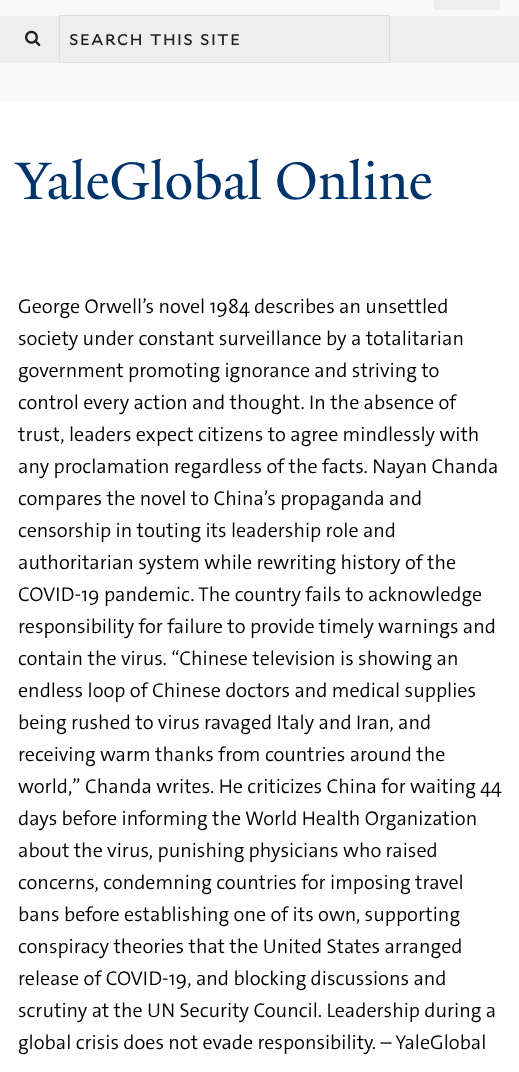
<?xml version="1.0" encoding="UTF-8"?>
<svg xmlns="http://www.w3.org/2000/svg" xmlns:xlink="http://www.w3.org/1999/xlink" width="519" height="1072">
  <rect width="100%" height="100%" fill="#ffffff" />
  <rect width="519" height="101" fill="#f9f9f9" />
  <rect x="434" width="66" height="10" fill="#eeeeee" />
  <rect y="16" width="519" height="47" fill="#eeeeee" />
  <image x="25" y="30" width="16" height="17" xlink:href="image1.png" />
  <rect x="59.5" y="15.5" width="330" height="47" fill="none" stroke="#dddddd" />
  <text x="69" y="45" word-spacing="1" style="font-family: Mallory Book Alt; font-size: 19.5px; letter-spacing: 1px; fill: #222222">search this site</text>
  <text x="16" y="199" style="font-family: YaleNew; font-size: 57px; fill: #00356b">YaleGlobal Online</text>
  <text x="18" y="313" style="font-family: 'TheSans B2'; font-size: 20px; font-weight: 300; fill: #000000">George Orwell’s novel 1984 describes an unsettled</text>
  <text x="18" y="345" style="font-family: 'TheSans B2'; font-size: 20px; font-weight: 300; fill: #000000">society under constant surveillance by a totalitarian</text>
  <text x="18" y="377" style="font-family: 'TheSans B2'; font-size: 20px; font-weight: 300; fill: #000000">government promoting ignorance and striving to</text>
  <text x="18" y="409" style="font-family: 'TheSans B2'; font-size: 20px; font-weight: 300; fill: #000000">control every action and thought. In the absence of</text>
  <text x="18" y="441" style="font-family: 'TheSans B2'; font-size: 20px; font-weight: 300; fill: #000000">trust, leaders expect citizens to agree mindlessly with</text>
  <text x="18" y="473" style="font-family: 'TheSans B2'; font-size: 20px; font-weight: 300; fill: #000000">any proclamation regardless of the facts. Nayan Chanda</text>
  <text x="18" y="505" style="font-family: 'TheSans B2'; font-size: 20px; font-weight: 300; fill: #000000">compares the novel to China’s propaganda and</text>
  <text x="18" y="537" style="font-family: 'TheSans B2'; font-size: 20px; font-weight: 300; fill: #000000">censorship in touting its leadership role and</text>
  <text x="18" y="569" style="font-family: 'TheSans B2'; font-size: 20px; font-weight: 300; fill: #000000">authoritarian system while rewriting history of the</text>
  <text x="18" y="601" style="font-family: 'TheSans B2'; font-size: 20px; font-weight: 300; fill: #000000">COVID-19 pandemic. The country fails to acknowledge</text>
  <text x="18" y="633" style="font-family: 'TheSans B2'; font-size: 20px; font-weight: 300; fill: #000000">responsibility for failure to provide timely warnings and</text>
  <text x="18" y="665" style="font-family: 'TheSans B2'; font-size: 20px; font-weight: 300; fill: #000000">contain the virus. “Chinese television is showing an</text>
  <text x="18" y="697" style="font-family: 'TheSans B2'; font-size: 20px; font-weight: 300; fill: #000000">endless loop of Chinese doctors and medical supplies</text>
  <text x="18" y="729" style="font-family: 'TheSans B2'; font-size: 20px; font-weight: 300; fill: #000000">being rushed to virus ravaged Italy and Iran, and</text>
  <text x="18" y="761" style="font-family: 'TheSans B2'; font-size: 20px; font-weight: 300; fill: #000000">receiving warm thanks from countries around the</text>
  <text x="18" y="793" style="font-family: 'TheSans B2'; font-size: 20px; font-weight: 300; fill: #000000">world,” Chanda writes. He criticizes China for waiting 44</text>
  <text x="18" y="825" style="font-family: 'TheSans B2'; font-size: 20px; font-weight: 300; fill: #000000">days before informing the World Health Organization</text>
  <text x="18" y="857" style="font-family: 'TheSans B2'; font-size: 20px; font-weight: 300; fill: #000000">about the virus, punishing physicians who raised</text>
  <text x="18" y="889" style="font-family: 'TheSans B2'; font-size: 20px; font-weight: 300; fill: #000000">concerns, condemning countries for imposing travel</text>
  <text x="18" y="921" style="font-family: 'TheSans B2'; font-size: 20px; font-weight: 300; fill: #000000">bans before establishing one of its own, supporting</text>
  <text x="18" y="953" style="font-family: 'TheSans B2'; font-size: 20px; font-weight: 300; fill: #000000">conspiracy theories that the United States arranged</text>
  <text x="18" y="985" style="font-family: 'TheSans B2'; font-size: 20px; font-weight: 300; fill: #000000">release of COVID-19, and blocking discussions and</text>
  <text x="18" y="1017" style="font-family: 'TheSans B2'; font-size: 20px; font-weight: 300; fill: #000000">scrutiny at the UN Security Council. Leadership during a</text>
  <text x="18" y="1049" style="font-family: 'TheSans B2'; font-size: 20px; font-weight: 300; fill: #000000">global crisis does not evade responsibility. – YaleGlobal</text>
</svg>
